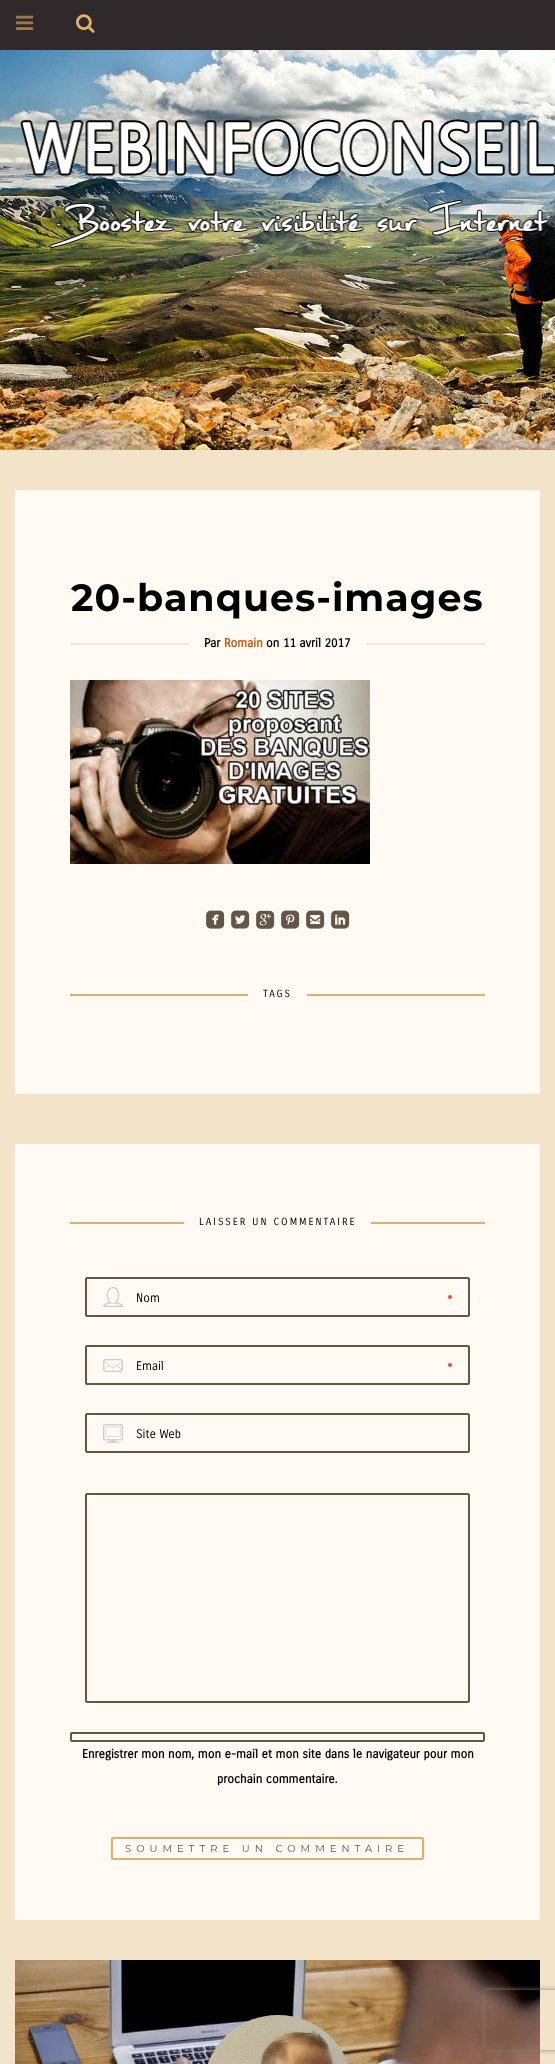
<?xml version="1.0" encoding="UTF-8"?>
<svg xmlns="http://www.w3.org/2000/svg" xmlns:xlink="http://www.w3.org/1999/xlink" width="555" height="2064">
  <defs>
    <clipPath id="clip1"><path d="M 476 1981 h 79 v 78 h -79 z m 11 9 h 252 c 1 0 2 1 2 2 v 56 c 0 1 -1 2 -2 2 h -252 c -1 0 -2 -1 -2 -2 v -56 c 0 -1 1 -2 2 -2 z" clip-rule="evenodd" /></clipPath>
  </defs>
  <rect width="100%" height="100%" fill="#f2e3c9" />
  <rect width="555" height="50" fill="#30292b" />
  <image x="16" y="15" width="18" height="15" xlink:href="image1.png" />
  <image x="76" y="14" width="19" height="19" xlink:href="image2.png" />
  <image x="0" y="50" width="555" height="400" xlink:href="image3.png" />
  <image x="19" y="119" width="536" height="129" xlink:href="image4.png" />
  <rect x="15" y="490" width="525" height="604" fill="#fffaf3" />
  <rect x="70" y="643" width="119" height="2" fill="#f4e7d7" />
  <rect x="366" y="643" width="119" height="2" fill="#f4e7d7" />
  <image x="70" y="680" width="300" height="184" xlink:href="image5.png" />
  <image x="206" y="910" width="19" height="19" xlink:href="image6.png" />
  <image x="231" y="910" width="19" height="19" xlink:href="image7.png" />
  <image x="256" y="910" width="19" height="19" xlink:href="image8.png" />
  <image x="281" y="910" width="19" height="19" xlink:href="image9.png" />
  <image x="306" y="910" width="19" height="19" xlink:href="image10.png" />
  <image x="331" y="910" width="19" height="19" xlink:href="image11.png" />
  <rect x="70" y="994" width="178" height="2" fill="#e2ae69" />
  <rect x="307" y="994" width="178" height="2" fill="#e2ae69" />
  <rect x="15" y="1144" width="525" height="776" fill="#fffaf3" />
  <rect x="70" y="1222" width="114" height="2" fill="#e2ae69" />
  <rect x="371" y="1222" width="114" height="2" fill="#e2ae69" />
  <circle cx="450" cy="1297" r="2" fill="#e94b35" />
  <image x="103" y="1287" width="20" height="20" xlink:href="image12.png" />
  <rect x="86" y="1278" width="383" height="38" rx="1" fill="none" stroke="#635647" stroke-width="2" />
  <circle cx="450" cy="1365" r="2" fill="#e94b35" />
  <image x="103" y="1359" width="20" height="13" xlink:href="image13.png" />
  <rect x="86" y="1346" width="383" height="38" rx="1" fill="none" stroke="#635647" stroke-width="2" />
  <image x="103" y="1424" width="20" height="19" xlink:href="image14.png" />
  <rect x="86" y="1414" width="383" height="38" rx="1" fill="none" stroke="#635647" stroke-width="2" />
  <rect x="86" y="1494" width="383" height="208" rx="1" fill="none" stroke="#635647" stroke-width="2" />
  <rect x="71" y="1733" width="413" height="8" rx="1" fill="none" stroke="#635647" stroke-width="2" />
  <rect x="112" y="1838" width="311" height="21" rx="1" fill="none" stroke="#e2ae69" stroke-width="2" />
  <image x="15" y="1960" width="525" height="104" xlink:href="image15.png" />
  <image x="207" y="2015" width="142" height="49" xlink:href="image16.png" />
  <g clip-path="url(#clip1)">
    <rect x="485" y="1990" width="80" height="60" rx="2" fill="#808080" filter="blur(2.5px)" />
  </g>
  <text x="71" y="611" style="font-family: Montserrat; font-size: 38px; font-weight: bold; letter-spacing: 1px; fill: #000000">20-banques-images</text>
  <text x="204" y="647" style="font-family: Carrois Gothic; font-size: 12px; font-weight: bold; fill: #000000">Par</text>
  <text x="224" y="647" style="font-family: Carrois Gothic; font-size: 12px; font-weight: bold; fill: #c64f01">Romain</text>
  <text x="266" y="647" style="font-family: Carrois Gothic; font-size: 12px; font-weight: bold; fill: #000000">on 11 avril 2017</text>
  <text x="263" y="997" style="font-family: Carrois Gothic; font-size: 10px; letter-spacing: 2px; fill: #000000">TAGS</text>
  <text x="199" y="1225" style="font-family: Carrois Gothic; font-size: 10px; letter-spacing: 2px; fill: #000000">LAISSER UN COMMENTAIRE</text>
  <text x="136" y="1302" style="font-family: Carrois Gothic; font-size: 12px; fill: #000000">Nom</text>
  <text x="136" y="1370" style="font-family: Carrois Gothic; font-size: 12px; fill: #000000">Email</text>
  <text x="136" y="1438" style="font-family: Carrois Gothic; font-size: 12px; fill: #000000">Site Web</text>
  <text x="82" y="1758" style="font-family: Carrois Gothic; font-size: 12px; font-weight: bold; fill: #000000">Enregistrer mon nom, mon e-mail et mon site dans le navigateur pour mon</text>
  <text x="217" y="1783" style="font-family: Carrois Gothic; font-size: 12px; font-weight: bold; fill: #000000">prochain commentaire.</text>
  <text x="125" y="1852" style="font-family: Montserrat; font-size: 10px; letter-spacing: 5px; fill: #635647">SOUMETTRE UN COMMENTAIRE</text>
</svg>
